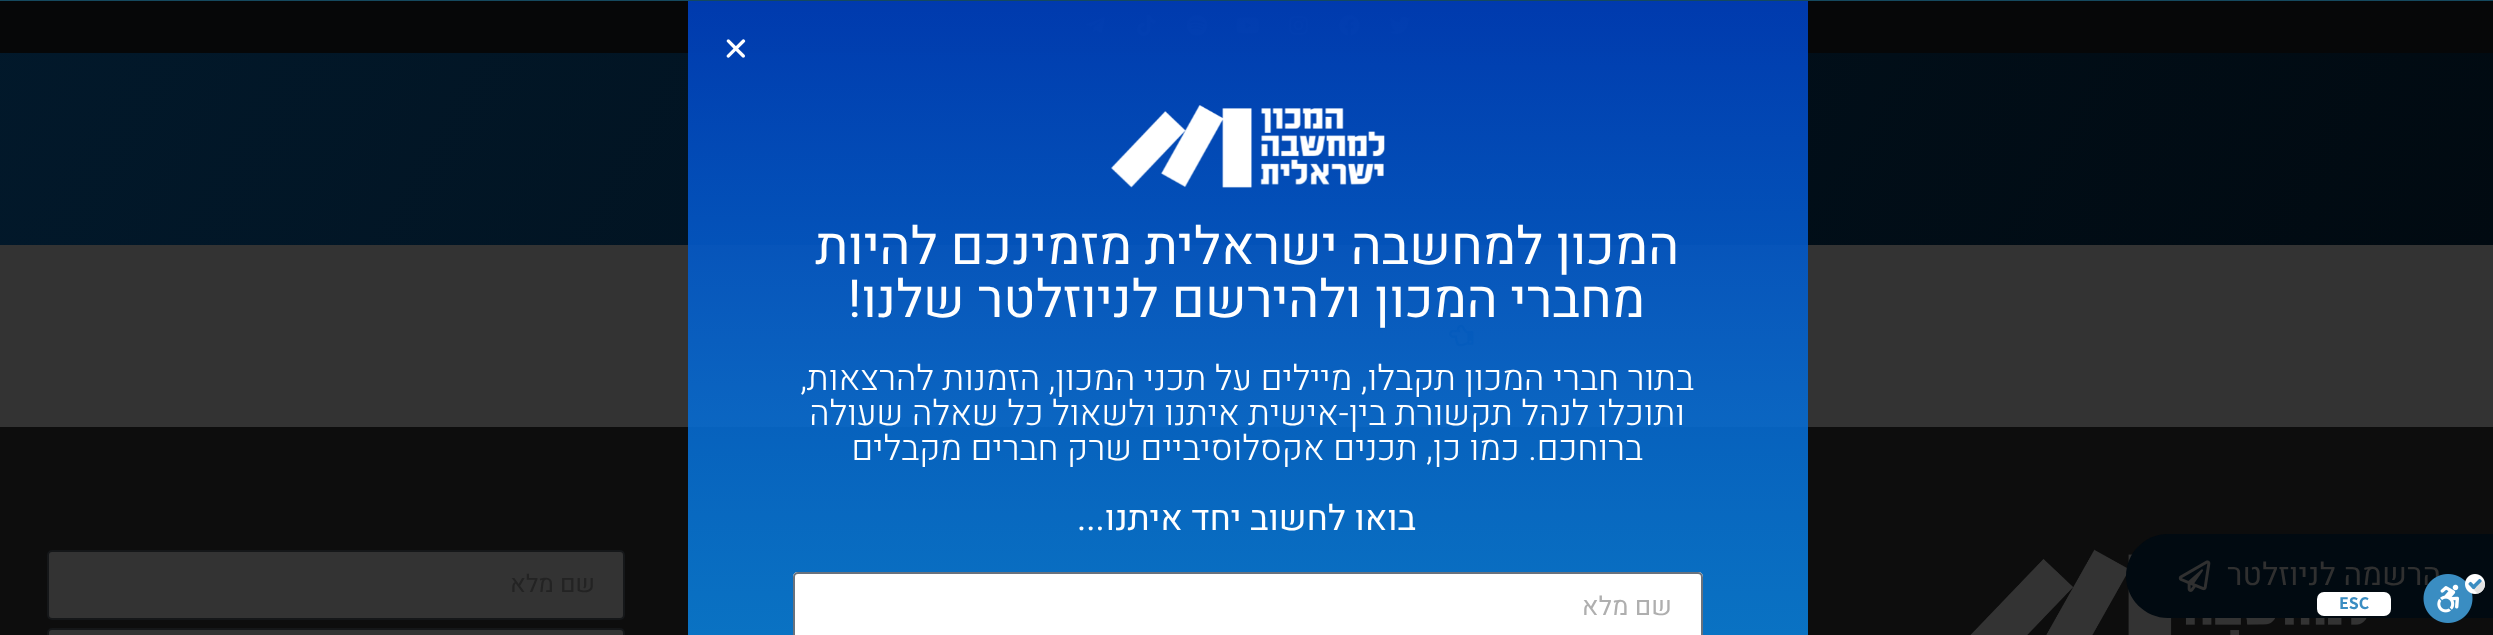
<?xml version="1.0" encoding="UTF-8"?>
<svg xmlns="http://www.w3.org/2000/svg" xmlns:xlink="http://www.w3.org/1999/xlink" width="2493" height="635">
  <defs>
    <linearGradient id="g1" gradientUnits="userSpaceOnUse" x1="179" y1="-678" x2="2315" y2="555"><stop offset="0" stop-color="#021a2d" /><stop offset="1" stop-color="#010a11" /></linearGradient>
    <linearGradient id="g2" gradientUnits="userSpaceOnUse" x1="1248" y1="0" x2="1248" y2="635"><stop offset="0" stop-color="#003bb1" stop-opacity="0.98" /><stop offset="1" stop-color="#0984e3" stop-opacity="0.85" /></linearGradient>
  </defs>
  <rect width="100%" height="100%" fill="#333333" />
  <rect y="1" width="2493" height="52" fill="#060708" />
  <image x="1389" y="16" width="22" height="18" xlink:href="image1.png" />
  <image x="1339" y="15" width="21" height="21" xlink:href="image2.png" />
  <image x="1289" y="16" width="19" height="19" xlink:href="image3.png" />
  <image x="1236" y="17" width="23" height="17" xlink:href="image4.png" />
  <image x="1186" y="15" width="22" height="21" xlink:href="image5.png" />
  <image x="1137" y="14" width="19" height="22" xlink:href="image6.png" />
  <image x="1086" y="17" width="19" height="16" xlink:href="image7.png" />
  <rect y="53" width="2493" height="192" fill="url(#g1)" />
  <image x="1449" y="324" width="25" height="23" xlink:href="image8.png" />
  <rect y="427" width="2493" height="208" fill="#0d0d0d" />
  <rect x="688" y="1" width="1120" height="634" fill="url(#g2)" />
  <image x="726" y="39" width="20" height="19" xlink:href="image9.png" />
  <image x="1111" y="105" width="274" height="83" xlink:href="image10.png" />
  <path d="M 798 572 h 900 c 3 0 5 2 5 5 v 58 h -910 v -58 c 0 -3 2 -5 5 -5 z" fill="#ffffff" />
  <rect x="794" y="573" width="908" height="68" rx="4" fill="none" stroke="#69727d" stroke-width="2" />
  <image x="1970" y="549" width="397" height="86" xlink:href="image12.png" />
  <path d="M 2168 534 h 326 v 84 h -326 c -23 0 -42 -19 -42 -42 c 0 -23 19 -42 42 -42 z" fill="#010a11" />
  <image x="2178" y="560" width="33" height="32" xlink:href="image11.png" />
  <rect x="48" y="551" width="576" height="68" rx="4" fill="#333333" stroke="#151719" stroke-width="2" />
  <rect x="48" y="629" width="576" height="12" rx="4" fill="#333333" stroke="#151719" stroke-width="2" />
  <rect width="2493" height="1" fill="#15495f" />
  <rect x="2317" y="592" width="74" height="24" rx="7" fill="#ffffff" />
  <text x="1679" y="264" style="font-family: Heebo; font-size: 52.5px; direction: rtl; fill: #ffffff">המכון למחשבה ישראלית מזמינכם להיות</text>
  <text x="1645" y="317" style="font-family: Heebo; font-size: 52.5px; direction: rtl; fill: #ffffff">מחברי המכון ולהירשם לניוזלטר שלנו!</text>
  <text x="1694" y="390" style="font-family: Heebo; font-size: 35px; font-weight: 300; direction: rtl; fill: #ffffff">בתור חברי המכון תקבלו, מיילים על תכני המכון, הזמנות להרצאות,</text>
  <text x="1685" y="425" style="font-family: Heebo; font-size: 35px; font-weight: 300; direction: rtl; fill: #ffffff">ותוכלו לנהל תקשורת בין-אישית איתנו ולשאול כל שאלה שעולה</text>
  <text x="1643" y="460" style="font-family: Heebo; font-size: 35px; font-weight: 300; direction: rtl; fill: #ffffff">ברוחכם. כמו כן, תכנים אקסלוסיביים שרק חברים מקבלים</text>
  <text x="1416" y="530" style="font-family: Heebo; font-size: 35px; direction: rtl; fill: #ffffff">בואו לחשוב יחד איתנו...</text>
  <text x="1672" y="615" style="font-family: Heebo; font-size: 26px; direction: rtl; fill: #afafaf">שם מלא</text>
  <text x="2441" y="585" style="font-family: Heebo; font-size: 31.5px; direction: rtl; fill: #303030">הרשמה לניוזלטר</text>
  <text x="595" y="592" style="font-family: Heebo; font-size: 24.5px; direction: rtl; fill: #232323">שם מלא</text>
  <image x="2423" y="574" width="62" height="49" xlink:href="image13.png" />
  <text x="2339" y="609" style="font-family: Assistant; font-size: 18px; font-weight: bold; fill: #3a8dc2">ESC</text>
</svg>
